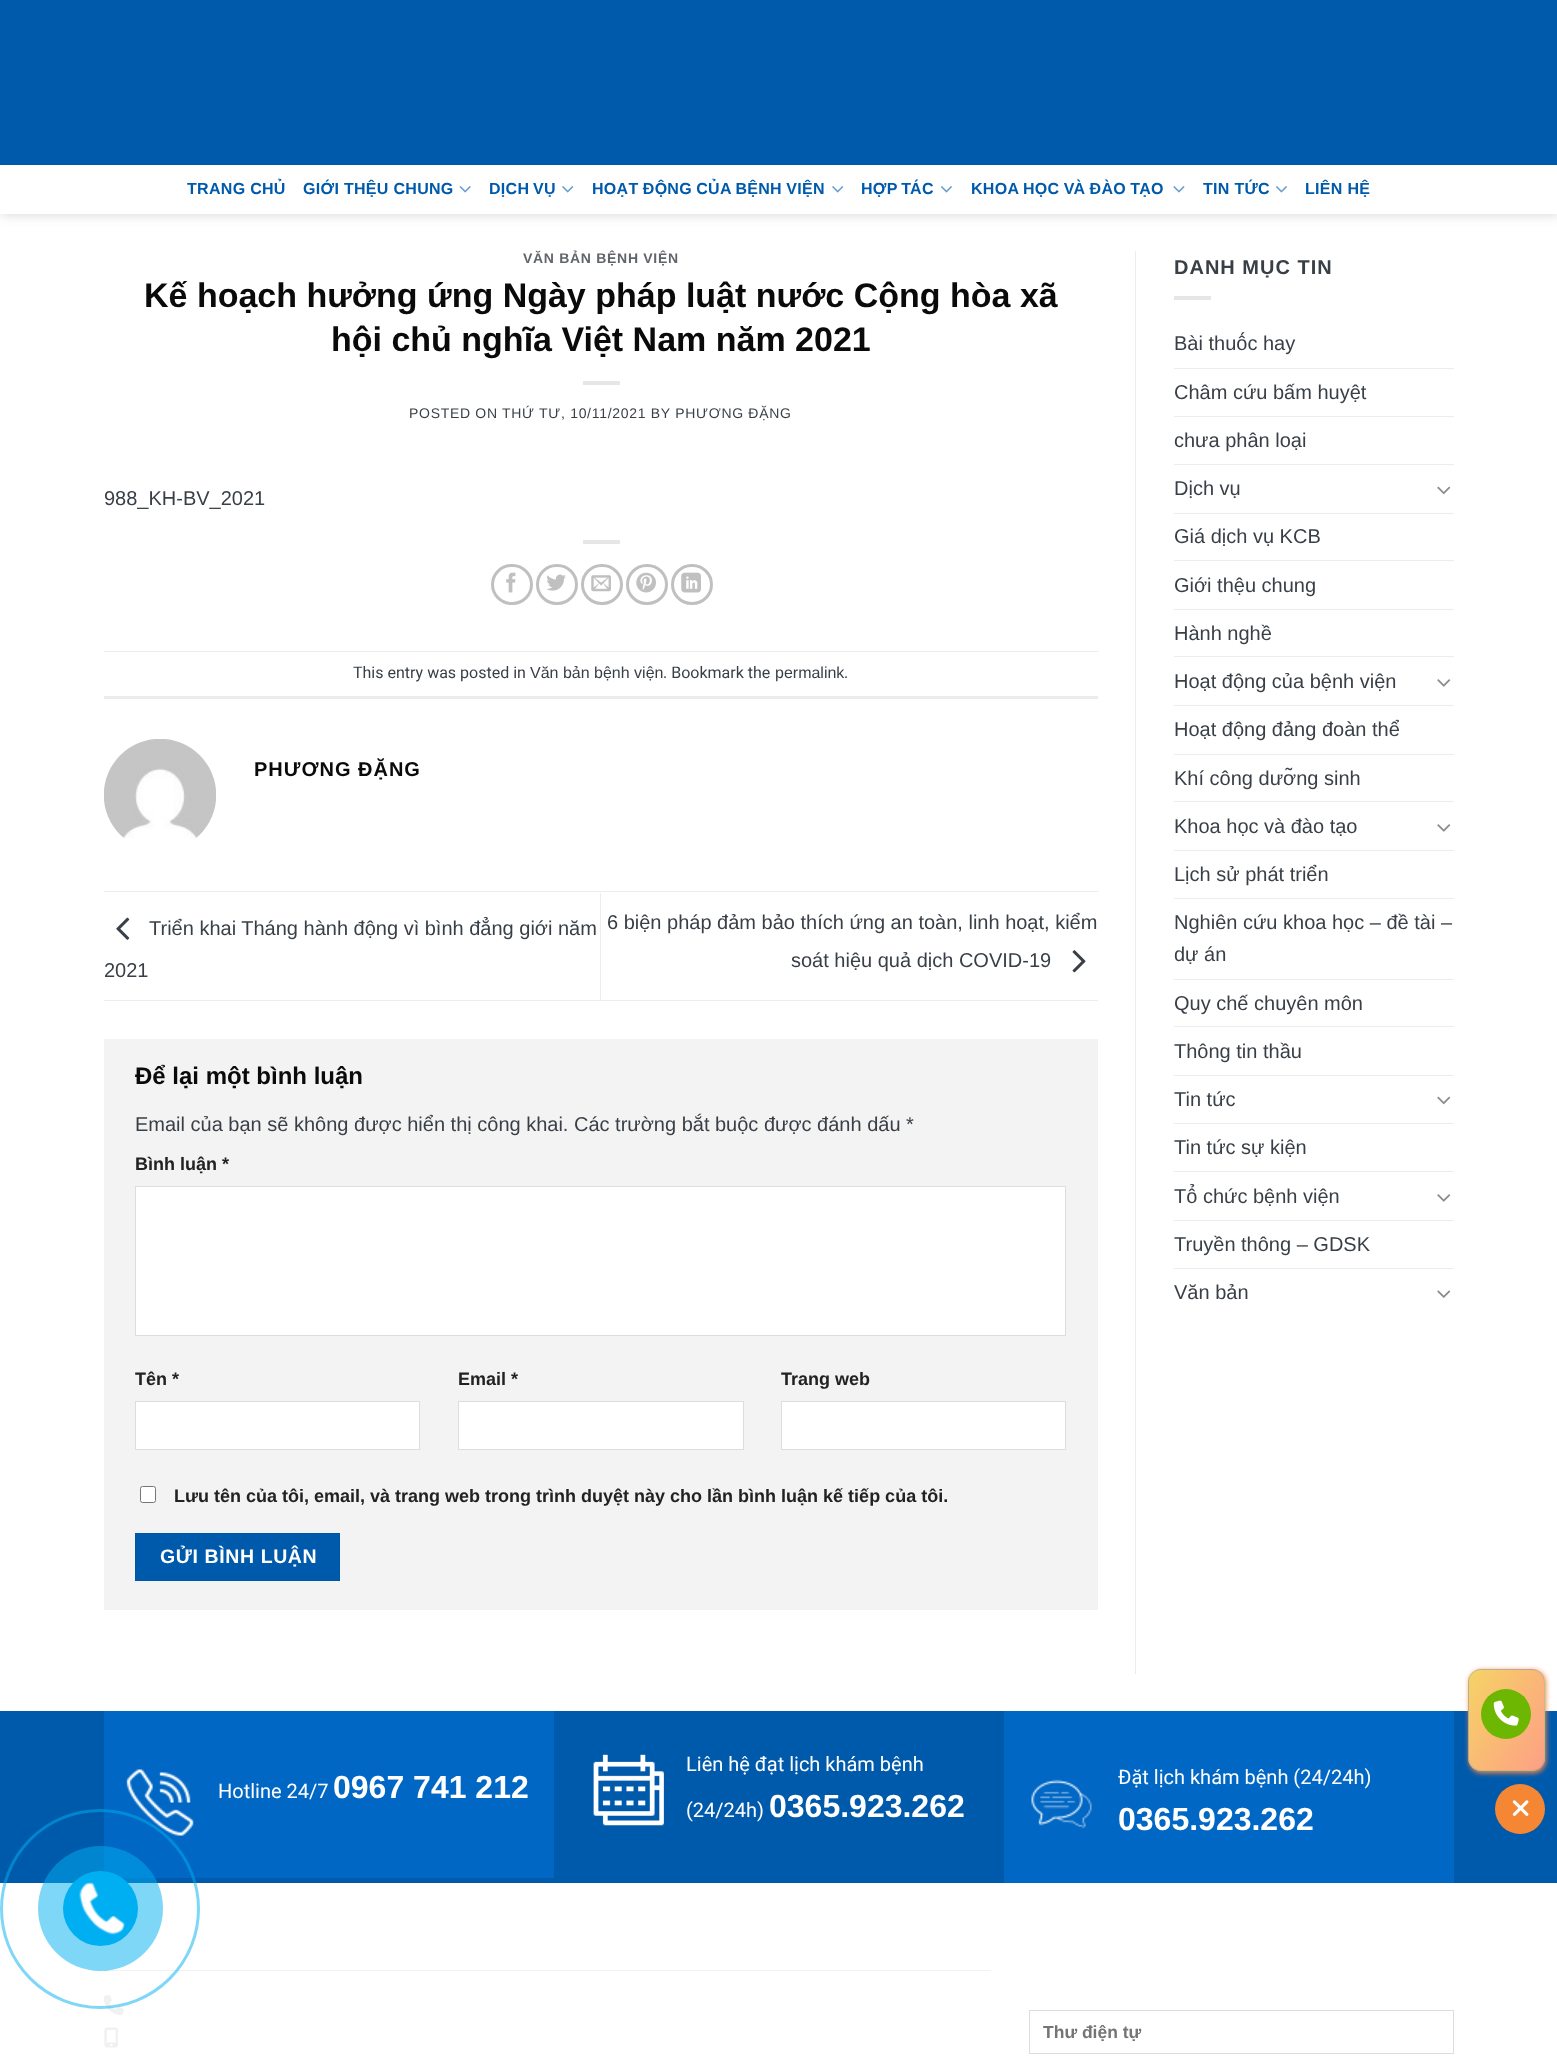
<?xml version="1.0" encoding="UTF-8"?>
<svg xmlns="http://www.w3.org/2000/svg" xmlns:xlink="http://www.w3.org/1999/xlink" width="1557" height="2058">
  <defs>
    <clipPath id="clip1"><rect x="1468" y="1669" width="77" height="102" rx="13" /></clipPath>
    <linearGradient id="g1" gradientUnits="userSpaceOnUse" x1="1456" y1="1591" x2="1556" y2="1649"><stop offset="0" stop-color="#f6d365" /><stop offset="1" stop-color="#fda085" /></linearGradient>
    <linearGradient id="g2" gradientUnits="userSpaceOnUse" x1="1381" y1="1691" x2="1481" y2="1749"><stop offset="0" stop-color="#f6d365" /><stop offset="1" stop-color="#fda085" /></linearGradient>
    <linearGradient id="g3" gradientUnits="userSpaceOnUse" x1="1456" y1="1691" x2="1556" y2="1749"><stop offset="0" stop-color="#f6d365" /><stop offset="1" stop-color="#fda085" /></linearGradient>
    <linearGradient id="g4" gradientUnits="userSpaceOnUse" x1="1531" y1="1691" x2="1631" y2="1749"><stop offset="0" stop-color="#f6d365" /><stop offset="1" stop-color="#fda085" /></linearGradient>
    <linearGradient id="g5" gradientUnits="userSpaceOnUse" x1="1456" y1="1791" x2="1556" y2="1849"><stop offset="0" stop-color="#f6d365" /><stop offset="1" stop-color="#fda085" /></linearGradient>
    <clipPath id="clip2"><rect x="1043" y="2021" width="397" height="20" /></clipPath>
  </defs>
  <rect width="100%" height="100%" fill="#ffffff" />
  <rect x="1" y="1" width="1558" height="214" fill="#000000" fill-opacity="0.15" filter="blur(6px)" />
  <rect width="1557" height="165" fill="#005aab" />
  <rect y="165" width="1557" height="49" fill="#ffffff" />
  <image x="459" y="186" width="12" height="7" xlink:href="image1.png" />
  <image x="562" y="186" width="12" height="7" xlink:href="image2.png" />
  <image x="832" y="186" width="12" height="7" xlink:href="image2.png" />
  <image x="941" y="186" width="11" height="7" xlink:href="image3.png" />
  <image x="1173" y="186" width="12" height="7" xlink:href="image4.png" />
  <image x="1276" y="186" width="11" height="7" xlink:href="image3.png" />
  <rect x="583" y="381" width="37" height="4" fill="#e6e6e6" />
  <rect x="583" y="540" width="37" height="4" fill="#e6e6e6" />
  <rect x="492.5" y="565.5" width="39" height="38" rx="19" fill="none" stroke="#c0c0c0" stroke-width="3" />
  <image x="506" y="572" width="10" height="21" xlink:href="image5.png" />
  <rect x="537.5" y="565.5" width="39" height="38" rx="19" fill="none" stroke="#c0c0c0" stroke-width="3" />
  <image x="546" y="574" width="20" height="17" xlink:href="image6.png" />
  <rect x="582.5" y="565.5" width="39" height="38" rx="19" fill="none" stroke="#c0c0c0" stroke-width="3" />
  <image x="591" y="575" width="20" height="17" xlink:href="image7.png" />
  <rect x="627.5" y="565.5" width="39" height="38" rx="19" fill="none" stroke="#c0c0c0" stroke-width="3" />
  <image x="636" y="572" width="20" height="21" xlink:href="image8.png" />
  <rect x="672.5" y="565.5" width="39" height="38" rx="19" fill="none" stroke="#c0c0c0" stroke-width="3" />
  <image x="681" y="572" width="20" height="21" xlink:href="image9.png" />
  <rect x="104" y="651" width="994" height="1" fill="#ececec" />
  <rect x="104" y="696" width="994" height="3" fill="#ececec" />
  <image x="104" y="739" width="112" height="99" xlink:href="image10.png" />
  <rect x="104" y="891" width="994" height="1" fill="#ececec" />
  <rect x="104" y="1000" width="994" height="1" fill="#ececec" />
  <image x="116" y="917" width="14" height="23" xlink:href="image11.png" />
  <rect x="600" y="893" width="1" height="107" fill="#ececec" />
  <image x="1072" y="950" width="14" height="23" xlink:href="image12.png" />
  <rect x="104" y="1039" width="994" height="571" fill="#f3f3f3" />
  <rect x="135.5" y="1186.5" width="930" height="149" fill="#ffffff" stroke="#dddddd" />
  <rect x="135.5" y="1401.5" width="284" height="48" fill="#ffffff" stroke="#dddddd" />
  <rect x="458.5" y="1401.5" width="285" height="48" fill="#ffffff" stroke="#dddddd" />
  <rect x="781.5" y="1401.5" width="284" height="48" fill="#ffffff" stroke="#dddddd" />
  <rect x="140.5" y="1486.5" width="15" height="16" rx="2" fill="#ffffff" stroke="#767676" />
  <rect x="135.5" y="1533.5" width="204" height="47" fill="#005aab" stroke="#0056a2" />
  <rect x="1135" y="251" width="1" height="1423" fill="#ececec" />
  <rect x="1174" y="296" width="37" height="4" fill="#e6e6e6" />
  <rect x="1174" y="368" width="280" height="1" fill="#ececec" />
  <rect x="1174" y="416" width="280" height="1" fill="#ececec" />
  <rect x="1174" y="464" width="280" height="1" fill="#ececec" />
  <image x="1437" y="486" width="14" height="9" xlink:href="image13.png" />
  <rect x="1174" y="513" width="280" height="1" fill="#ececec" />
  <rect x="1174" y="560" width="280" height="1" fill="#ececec" />
  <rect x="1174" y="609" width="280" height="1" fill="#ececec" />
  <rect x="1174" y="656" width="280" height="1" fill="#ececec" />
  <image x="1437" y="679" width="14" height="8" xlink:href="image14.png" />
  <rect x="1174" y="705" width="280" height="1" fill="#ececec" />
  <rect x="1174" y="754" width="280" height="1" fill="#ececec" />
  <rect x="1174" y="801" width="280" height="1" fill="#ececec" />
  <image x="1437" y="824" width="14" height="8" xlink:href="image14.png" />
  <rect x="1174" y="850" width="280" height="1" fill="#ececec" />
  <rect x="1174" y="898" width="280" height="1" fill="#ececec" />
  <rect x="1174" y="979" width="280" height="1" fill="#ececec" />
  <rect x="1174" y="1026" width="280" height="1" fill="#ececec" />
  <rect x="1174" y="1075" width="280" height="1" fill="#ececec" />
  <image x="1437" y="1096" width="14" height="9" xlink:href="image13.png" />
  <rect x="1174" y="1123" width="280" height="1" fill="#ececec" />
  <rect x="1174" y="1171" width="280" height="1" fill="#ececec" />
  <image x="1437" y="1194" width="14" height="8" xlink:href="image14.png" />
  <rect x="1174" y="1220" width="280" height="1" fill="#ececec" />
  <rect x="1174" y="1268" width="280" height="1" fill="#ececec" />
  <image x="1437" y="1290" width="14" height="8" xlink:href="image15.png" />
  <rect y="1711" width="1557" height="172" fill="#005aab" />
  <rect x="104" y="1711" width="450" height="167" fill="#0067c5" />
  <image x="126" y="1769" width="68" height="67" xlink:href="image16.png" />
  <image x="593" y="1754" width="71" height="72" xlink:href="image17.png" />
  <rect x="1004" y="1711" width="450" height="172" fill="#0067c5" />
  <image x="1031" y="1779" width="61" height="50" xlink:href="image18.png" />
  <rect x="104" y="1970" width="887" height="1" fill="#f2f2f2" />
  <image x="104" y="1995" width="20" height="20" xlink:href="image19.png" />
  <image x="104" y="2027" width="14" height="21" xlink:href="image20.png" />
  <rect x="1029.5" y="2010.5" width="424" height="43" fill="none" stroke="#dddddd" />
  <rect x="1469" y="1670" width="77" height="103" rx="13" fill="#fb8543" filter="blur(2.5px)" />
  <g clip-path="url(#clip1)">
    <rect x="1469" y="1669" width="75" height="1" fill="url(#g1)" />
    <rect x="1468" y="1670" width="1" height="100" fill="url(#g2)" />
    <rect x="1469" y="1670" width="75" height="100" fill="url(#g3)" />
    <rect x="1544" y="1670" width="1" height="100" fill="url(#g4)" />
    <rect x="1469" y="1770" width="75" height="1" fill="url(#g5)" />
  </g>
  <rect x="1468.5" y="1669.5" width="76" height="101" rx="12.5" fill="none" stroke="#00afee" stroke-opacity="0.29" />
  <circle cx="1506" cy="1714" r="25" fill="#6db703" />
  <image x="1493" y="1700" width="26" height="26" xlink:href="image21.png" />
  <circle cx="1520" cy="1809" r="25" fill="#f58634" />
  <image x="1512" y="1800" width="17" height="16" xlink:href="image22.png" />
  <circle cx="100" cy="1909" r="98.5" fill="none" stroke="#00aff2" stroke-opacity="0.5" stroke-width="3" />
  <circle cx="100.5" cy="1908.5" r="62.5" fill="#00aff2" fill-opacity="0.5" />
  <circle cx="100.5" cy="1908.5" r="37.5" fill="#00aff2" />
  <image x="79" y="1882" width="46" height="53" xlink:href="image23.png" />
  <text x="187" y="194" style="font-family: Liberation Sans; font-size: 16px; font-weight: bold; letter-spacing: 0.3px; fill: #005aab">TRANG CHỦ</text>
  <text x="303" y="194" style="font-family: Liberation Sans; font-size: 16px; font-weight: bold; letter-spacing: 0.3px; fill: #005aab">GIỚI THỆU CHUNG</text>
  <text x="489" y="194" word-spacing="-1" style="font-family: Liberation Sans; font-size: 16px; font-weight: bold; letter-spacing: 0.3px; fill: #005aab">DỊCH VỤ</text>
  <text x="592" y="194" word-spacing="-0.5" style="font-family: Liberation Sans; font-size: 16px; font-weight: bold; letter-spacing: 0.3px; fill: #005aab">HOẠT ĐỘNG CỦA BỆNH VIỆN</text>
  <text x="861" y="194" word-spacing="-1" style="font-family: Liberation Sans; font-size: 16px; font-weight: bold; letter-spacing: 0.3px; fill: #005aab">HỢP TÁC</text>
  <text x="971" y="194" word-spacing="-0.5" style="font-family: Liberation Sans; font-size: 16px; font-weight: bold; letter-spacing: 0.3px; fill: #005aab">KHOA HỌC VÀ ĐÀO TẠO</text>
  <text x="1203" y="194" style="font-family: Liberation Sans; font-size: 16px; font-weight: bold; letter-spacing: 0.3px; fill: #005aab">TIN TỨC</text>
  <text x="1305" y="194" style="font-family: Liberation Sans; font-size: 16px; font-weight: bold; letter-spacing: 0.3px; fill: #005aab">LIÊN HỆ</text>
  <text x="523" y="263" style="font-family: Liberation Sans; font-size: 14px; font-weight: bold; letter-spacing: 0.7px; fill: #61656b">VĂN BẢN BỆNH VIỆN</text>
  <text x="144" y="307" style="font-family: Liberation Sans; font-size: 34px; font-weight: bold; fill: #0a0a0a">Kế hoạch hưởng ứng Ngày pháp luật nước Cộng hòa xã</text>
  <text x="331" y="351" style="font-family: Liberation Sans; font-size: 34px; font-weight: bold; fill: #0a0a0a">hội chủ nghĩa Việt Nam năm 2021</text>
  <text x="409" y="418" style="font-family: Liberation Sans; font-size: 14px; letter-spacing: 0.7px; fill: #393f46">POSTED ON</text>
  <text x="502" y="418" style="font-family: Liberation Sans; font-size: 14px; letter-spacing: 0.7px; fill: #393f46">THỨ TƯ, 10/11/2021 BY PHƯƠNG ĐẶNG</text>
  <text x="104" y="505" style="font-family: Liberation Sans; font-size: 20px; fill: #393f46">988_KH-BV_2021</text>
  <text x="353" y="678" style="font-family: Roboto; font-size: 16px; fill: #393f46">This entry was posted in</text>
  <text x="530" y="678" style="font-family: Liberation Sans; font-size: 16px; fill: #393f46">Văn bản bệnh viện</text>
  <text x="663" y="678" style="font-family: Roboto; font-size: 16px; fill: #393f46">. Bookmark the</text>
  <text x="775" y="678" style="font-family: Liberation Sans; font-size: 16px; fill: #393f46">permalink</text>
  <text x="844" y="678" style="font-family: Roboto; font-size: 16px; fill: #393f46">.</text>
  <text x="254" y="776" style="font-family: Liberation Sans; font-size: 20px; font-weight: bold; letter-spacing: 1px; fill: #0a0a0a">PHƯƠNG ĐẶNG</text>
  <text x="149" y="935" style="font-family: Liberation Sans; font-size: 20px; fill: #393f46">Triển khai Tháng hành động vì bình đẳng giới năm</text>
  <text x="104" y="977" style="font-family: Liberation Sans; font-size: 20px; fill: #393f46">2021</text>
  <text x="607" y="929" style="font-family: Liberation Sans; font-size: 20px; fill: #393f46">6 biện pháp đảm bảo thích ứng an toàn, linh hoạt, kiểm</text>
  <text x="791" y="967" style="font-family: Liberation Sans; font-size: 20px; fill: #393f46">soát hiệu quả dịch COVID-19</text>
  <text x="135" y="1084" style="font-family: Liberation Sans; font-size: 24px; font-weight: bold; fill: #0a0a0a">Để lại một bình luận</text>
  <text x="135" y="1131" style="font-family: Liberation Sans; font-size: 20px; fill: #393f46">Email của bạn sẽ không được hiển thị công khai. Các trường bắt buộc được đánh dấu *</text>
  <text x="135" y="1170" style="font-family: Liberation Sans; font-size: 18px; font-weight: bold; fill: #222222">Bình luận *</text>
  <text x="135" y="1385" style="font-family: Liberation Sans; font-size: 18px; font-weight: bold; fill: #222222">Tên *</text>
  <text x="458" y="1385" style="font-family: Liberation Sans; font-size: 18px; font-weight: bold; fill: #222222">Email *</text>
  <text x="781" y="1385" style="font-family: Liberation Sans; font-size: 18px; font-weight: bold; fill: #222222">Trang web</text>
  <text x="174" y="1502" style="font-family: Liberation Sans; font-size: 18px; font-weight: bold; fill: #222222">Lưu tên của tôi, email, và trang web trong trình duyệt này cho lần bình luận kế tiếp của tôi.</text>
  <text x="160" y="1563" style="font-family: Liberation Sans; font-size: 19.5px; font-weight: bold; letter-spacing: 0.6px; fill: #ffffff">GỬI BÌNH LUẬN</text>
  <text x="1174" y="274" style="font-family: Liberation Sans; font-size: 20px; font-weight: bold; letter-spacing: 1px; fill: #393f46">DANH MỤC TIN</text>
  <text x="1174" y="350" style="font-family: Liberation Sans; font-size: 20px; fill: #393f46">Bài thuốc hay</text>
  <text x="1174" y="399" style="font-family: Liberation Sans; font-size: 20px; fill: #393f46">Châm cứu bấm huyệt</text>
  <text x="1174" y="447" style="font-family: Liberation Sans; font-size: 20px; fill: #393f46">chưa phân loại</text>
  <text x="1174" y="495" style="font-family: Liberation Sans; font-size: 20px; fill: #393f46">Dịch vụ</text>
  <text x="1174" y="543" style="font-family: Liberation Sans; font-size: 20px; fill: #393f46">Giá dịch vụ KCB</text>
  <text x="1174" y="592" style="font-family: Liberation Sans; font-size: 20px; fill: #393f46">Giới thệu chung</text>
  <text x="1174" y="640" style="font-family: Liberation Sans; font-size: 20px; fill: #393f46">Hành nghề</text>
  <text x="1174" y="688" style="font-family: Liberation Sans; font-size: 20px; fill: #393f46">Hoạt động của bệnh viện</text>
  <text x="1174" y="736" style="font-family: Liberation Sans; font-size: 20px; fill: #393f46">Hoạt động đảng đoàn thể</text>
  <text x="1174" y="785" style="font-family: Liberation Sans; font-size: 20px; fill: #393f46">Khí công dưỡng sinh</text>
  <text x="1174" y="833" style="font-family: Liberation Sans; font-size: 20px; fill: #393f46">Khoa học và đào tạo</text>
  <text x="1174" y="881" style="font-family: Liberation Sans; font-size: 20px; fill: #393f46">Lịch sử phát triển</text>
  <text x="1174" y="929" style="font-family: Liberation Sans; font-size: 20px; fill: #393f46">Nghiên cứu khoa học – đề tài –</text>
  <text x="1174" y="961" style="font-family: Liberation Sans; font-size: 20px; fill: #393f46">dự án</text>
  <text x="1174" y="1010" style="font-family: Liberation Sans; font-size: 20px; fill: #393f46">Quy chế chuyên môn</text>
  <text x="1174" y="1058" style="font-family: Liberation Sans; font-size: 20px; fill: #393f46">Thông tin thầu</text>
  <text x="1174" y="1106" style="font-family: Liberation Sans; font-size: 20px; fill: #393f46">Tin tức</text>
  <text x="1174" y="1154" style="font-family: Liberation Sans; font-size: 20px; fill: #393f46">Tin tức sự kiện</text>
  <text x="1174" y="1203" style="font-family: Liberation Sans; font-size: 20px; fill: #393f46">Tổ chức bệnh viện</text>
  <text x="1174" y="1251" style="font-family: Liberation Sans; font-size: 20px; fill: #393f46">Truyền thông – GDSK</text>
  <text x="1174" y="1299" style="font-family: Liberation Sans; font-size: 20px; fill: #393f46">Văn bản</text>
  <text x="218" y="1798" style="font-family: Roboto; font-size: 20px; fill: #ffffff">Hotline 24/7</text>
  <text x="333" y="1798" style="font-family: Liberation Sans; font-size: 32px; font-weight: bold; fill: #ffffff">0967 741 212</text>
  <text x="686" y="1771" style="font-family: Roboto; font-size: 20px; fill: #ffffff">Liên hệ đạt lịch khám bệnh</text>
  <text x="686" y="1817" style="font-family: Roboto; font-size: 20px; fill: #ffffff">(24/24h)</text>
  <text x="769" y="1817" style="font-family: Liberation Sans; font-size: 32px; font-weight: bold; fill: #ffffff">0365.923.262</text>
  <text x="1118" y="1784" style="font-family: Roboto; font-size: 20px; fill: #ffffff">Đặt lịch khám bệnh (24/24h)</text>
  <text x="1118" y="1830" style="font-family: Liberation Sans; font-size: 32px; font-weight: bold; fill: #ffffff">0365.923.262</text>
  <g clip-path="url(#clip2)">
    <text x="1043" y="2038" style="font-family: Liberation Sans; font-size: 17.5px; font-weight: bold; fill: #757575">Thư điện tự</text>
  </g>
</svg>
